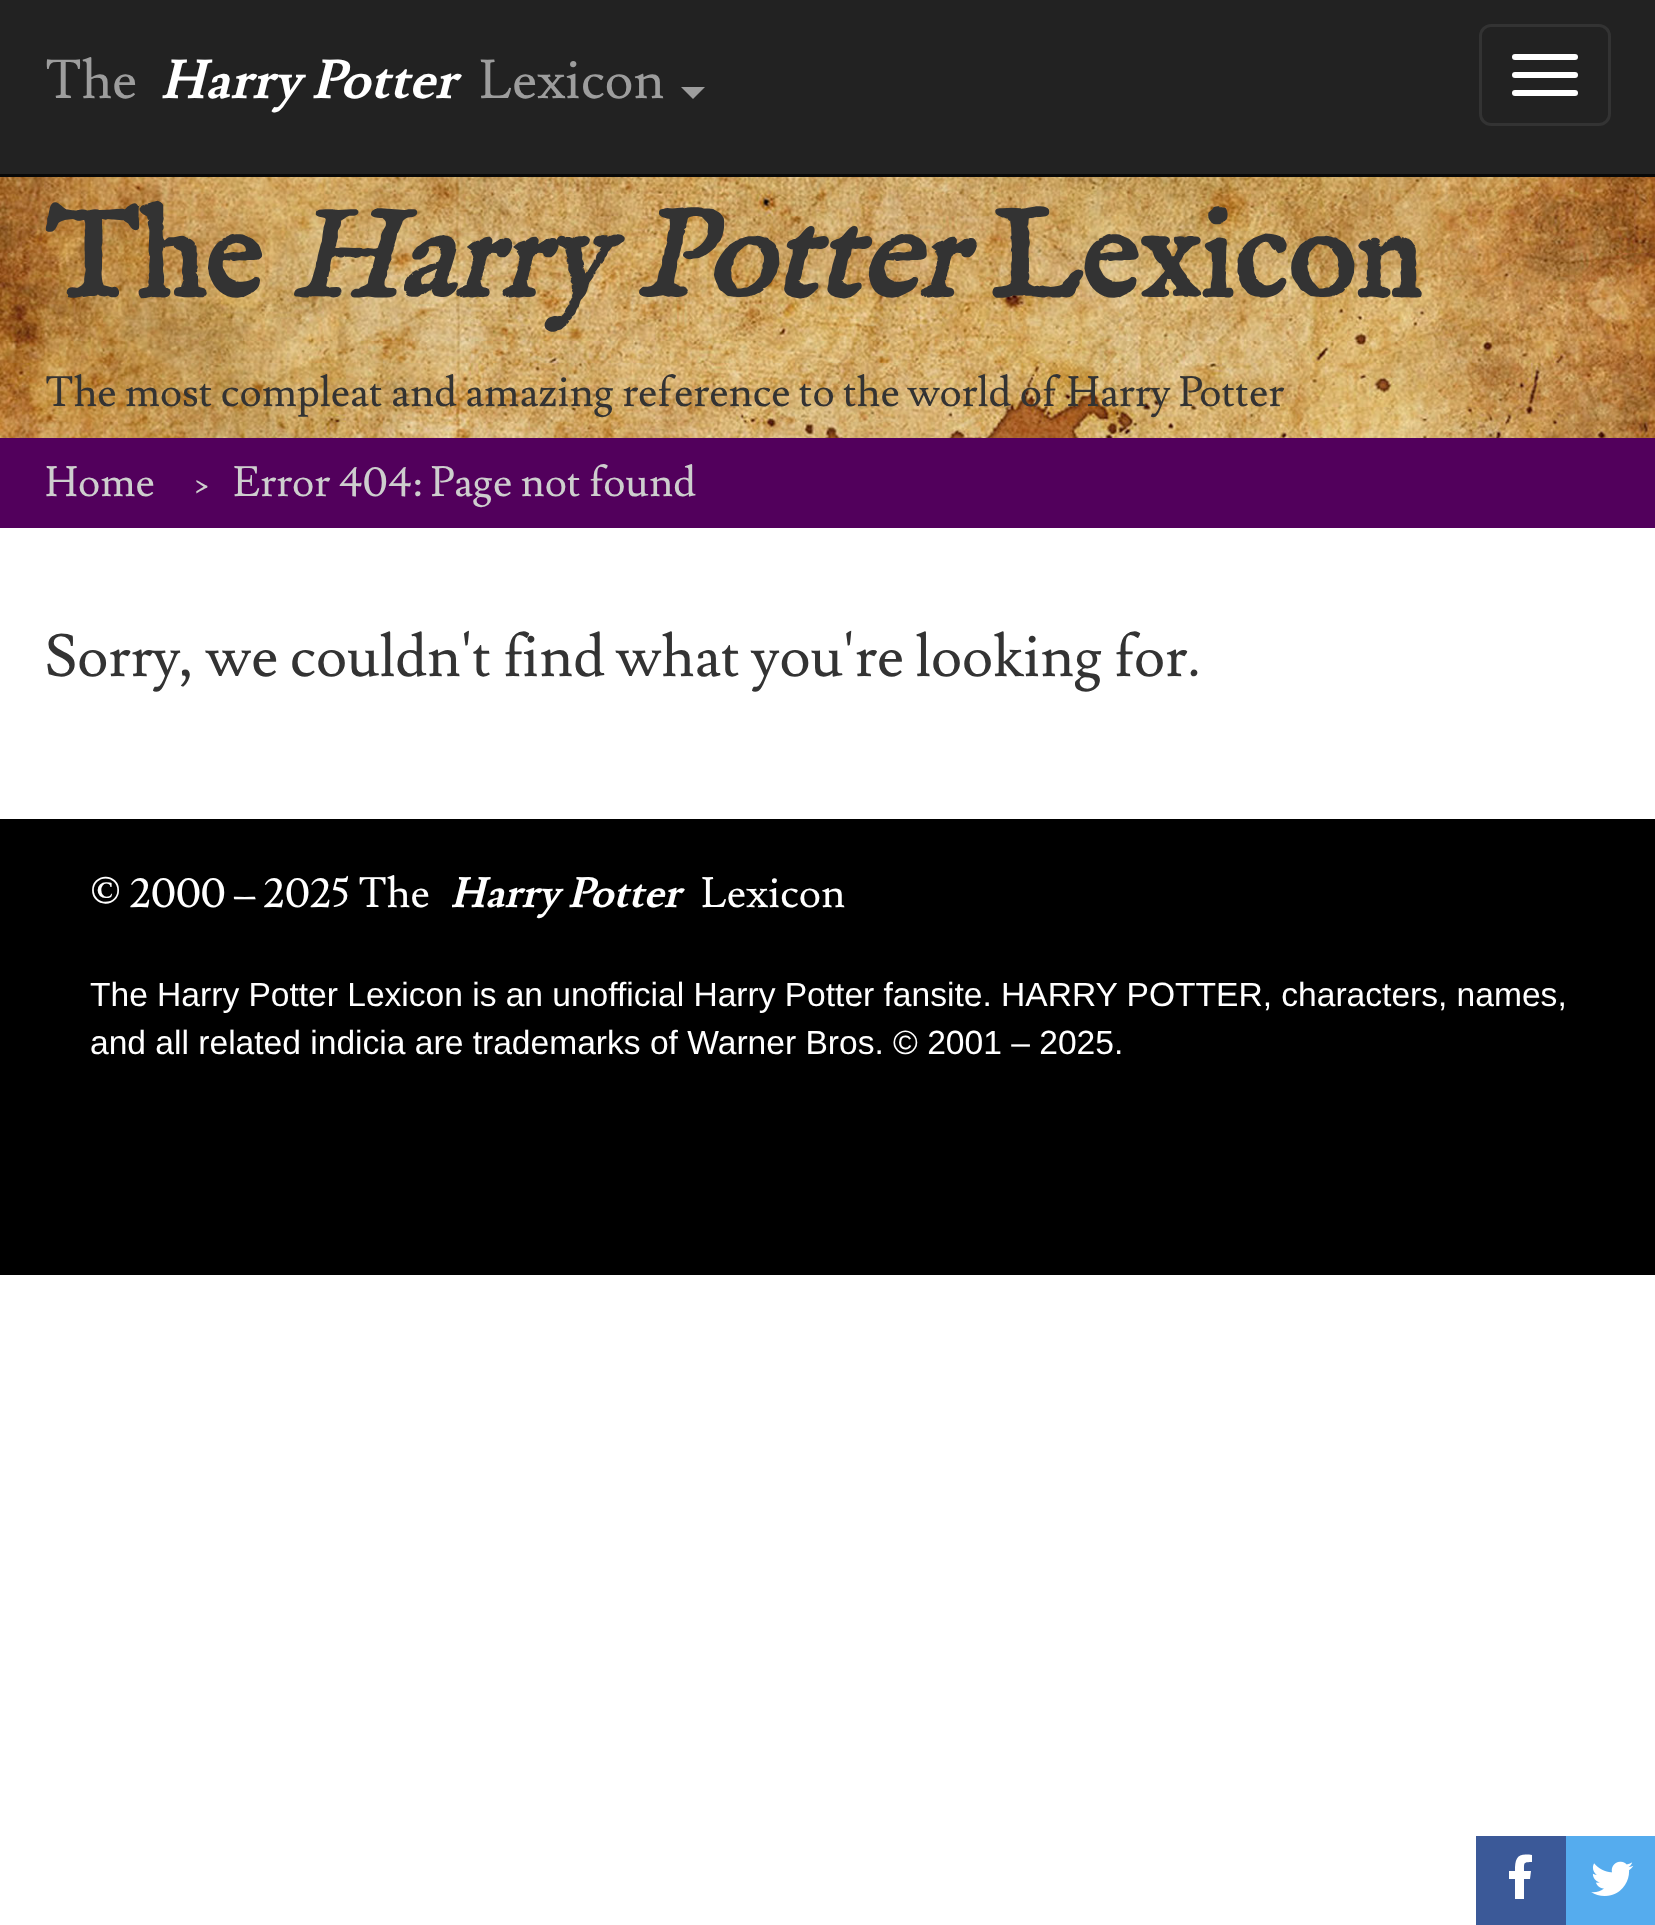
<?xml version="1.0" encoding="UTF-8"?>
<svg xmlns="http://www.w3.org/2000/svg" xmlns:xlink="http://www.w3.org/1999/xlink" width="1655" height="1925">
  <rect width="100%" height="100%" fill="#ffffff" />
  <rect width="1655" height="174" fill="#222222" />
  <rect y="174" width="1655" height="3" fill="#080808" />
  <path d="M 681 87 h 24 l -12 12 z" fill="#9d9d9d" />
  <rect x="1480.5" y="25.5" width="129" height="99" rx="10.5" fill="none" stroke="#333333" stroke-width="3" />
  <rect x="1512" y="54" width="66" height="6" rx="3" fill="#ffffff" />
  <rect x="1512" y="72" width="66" height="6" rx="3" fill="#ffffff" />
  <rect x="1512" y="90" width="66" height="6" rx="3" fill="#ffffff" />
  <image x="0" y="177" width="1655" height="261" xlink:href="image1.png" />
  <rect y="438" width="1655" height="90" fill="#52005c" />
  <rect y="819" width="1655" height="456" fill="#000000" />
  <rect x="1476" y="1836" width="90" height="89" fill="#3b5998" />
  <path d="M 1532 1855 v 7 c -9 0 -8 1 -8 9 h 7 l -1 8 h -6 v 20 h -9 v -20 h -6 v -8 h 6 c 0 -13 2 -18 17 -16 z" fill="#ffffff" />
  <rect x="1566" y="1836" width="89" height="89" fill="#55acee" />
  <image x="1591" y="1861" width="43" height="35" xlink:href="image2.png" />
  <text x="45" y="98" style="font-family: Lusitana; font-size: 54px; fill: #9d9d9d">The</text>
  <text x="160" y="98" style="font-family: Lusitana; font-size: 54px; font-weight: bold; font-style: italic; fill: #ffffff">Harry Potter</text>
  <text x="479" y="98" style="font-family: Lusitana; font-size: 54px; fill: #9d9d9d">Lexicon</text>
  <text x="45" y="297" style="font-family: IM FELL English; font-size: 126px; font-weight: bold; fill: #333333">The</text>
  <text x="289" y="297" style="font-family: IM FELL English; font-size: 126px; font-weight: bold; font-style: italic; fill: #333333">Harry Potter</text>
  <text x="990" y="297" style="font-family: IM FELL English; font-size: 126px; font-weight: bold; fill: #333333">Lexicon</text>
  <text x="45" y="406" style="font-family: Lusitana; font-size: 42px; fill: #333333">The most compleat and amazing reference to the world of Harry Potter</text>
  <text x="45" y="496" style="font-family: Lusitana; font-size: 42px; fill: #cecece">Home</text>
  <text x="193" y="496" style="font-family: Lusitana; font-size: 42px; fill: #cecece">›</text>
  <text x="233" y="496" style="font-family: Lusitana; font-size: 42px; fill: #cecece">Error 404: Page not found</text>
  <text x="45" y="676" style="font-family: Lusitana; font-size: 58.75px; fill: #333333">Sorry, we couldn't find what you're looking for.</text>
  <text x="90" y="907" style="font-family: Lusitana; font-size: 42px; fill: #ffffff">© 2000 – 2025 The</text>
  <text x="450" y="907" style="font-family: Lusitana; font-size: 42px; font-weight: bold; font-style: italic; fill: #ffffff">Harry Potter</text>
  <text x="701" y="907" style="font-family: Lusitana; font-size: 42px; fill: #ffffff">Lexicon</text>
  <text x="90" y="1006" word-spacing="-0.1" style="font-family: Liberation Sans; font-size: 33.6px; fill: #ffffff">The Harry Potter Lexicon is an unofficial Harry Potter fansite. HARRY POTTER, characters, names,</text>
  <text x="90" y="1054" style="font-family: Liberation Sans; font-size: 33.6px; fill: #ffffff">and all related indicia are trademarks of Warner Bros. © 2001 – 2025.</text>
</svg>
